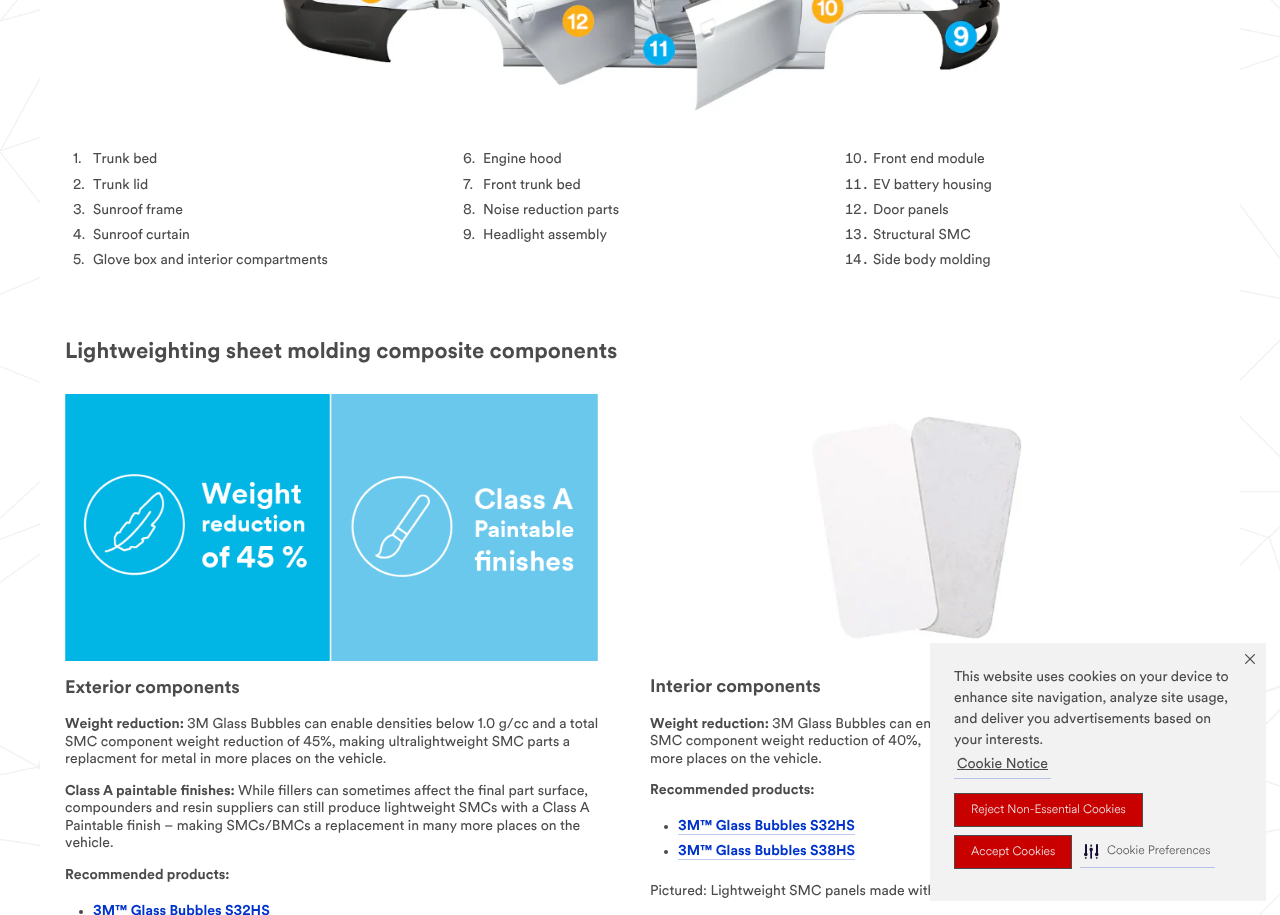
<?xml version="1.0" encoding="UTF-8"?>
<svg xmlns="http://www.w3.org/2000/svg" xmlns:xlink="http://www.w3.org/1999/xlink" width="1280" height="915">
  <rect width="100%" height="100%" fill="#ffffff" />
  <image x="0" y="0" width="1280" height="915" xlink:href="image1.png" />
  <rect x="40" width="1200" height="915" fill="#ffffff" />
  <image x="282" y="0" width="718" height="111" xlink:href="image2.png" />
  <image x="65" y="394" width="533" height="267" xlink:href="image3.png" />
  <circle cx="81" cy="912" r="2" fill="#4b4b4b" />
  <image x="812" y="416" width="210" height="223" xlink:href="image4.png" />
  <circle cx="666" cy="827" r="2" fill="#4b4b4b" />
  <rect x="678" y="834" width="177" height="1" fill="#bfccf2" />
  <circle cx="666" cy="852" r="2" fill="#4b4b4b" />
  <rect x="678" y="859" width="177" height="1" fill="#bfccf2" />
  <text x="73" y="163" style="font-family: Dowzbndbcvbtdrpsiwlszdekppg; font-size: 14px; fill: #4b4b4b">1.</text>
  <text x="93" y="163" style="font-family: Dowzbndbcvbtdrpsiwlszdekppg; font-size: 14px; fill: #4b4b4b">Trunk bed</text>
  <text x="73" y="189" style="font-family: Dowzbndbcvbtdrpsiwlszdekppg; font-size: 14px; fill: #4b4b4b">2.</text>
  <text x="93" y="189" style="font-family: Dowzbndbcvbtdrpsiwlszdekppg; font-size: 14px; fill: #4b4b4b">Trunk lid</text>
  <text x="73" y="214" style="font-family: Dowzbndbcvbtdrpsiwlszdekppg; font-size: 14px; fill: #4b4b4b">3.</text>
  <text x="93" y="214" style="font-family: Dowzbndbcvbtdrpsiwlszdekppg; font-size: 14px; fill: #4b4b4b">Sunroof frame</text>
  <text x="73" y="239" style="font-family: Dowzbndbcvbtdrpsiwlszdekppg; font-size: 14px; fill: #4b4b4b">4.</text>
  <text x="93" y="239" style="font-family: Dowzbndbcvbtdrpsiwlszdekppg; font-size: 14px; fill: #4b4b4b">Sunroof curtain</text>
  <text x="73" y="264" style="font-family: Dowzbndbcvbtdrpsiwlszdekppg; font-size: 14px; fill: #4b4b4b">5.</text>
  <text x="93" y="264" style="font-family: Dowzbndbcvbtdrpsiwlszdekppg; font-size: 14px; fill: #4b4b4b">Glove box and interior compartments</text>
  <text x="463" y="163" style="font-family: Dowzbndbcvbtdrpsiwlszdekppg; font-size: 14px; fill: #4b4b4b">6.</text>
  <text x="483" y="163" style="font-family: Dowzbndbcvbtdrpsiwlszdekppg; font-size: 14px; fill: #4b4b4b">Engine hood</text>
  <text x="463" y="189" style="font-family: Dowzbndbcvbtdrpsiwlszdekppg; font-size: 14px; fill: #4b4b4b">7.</text>
  <text x="483" y="189" style="font-family: Dowzbndbcvbtdrpsiwlszdekppg; font-size: 14px; fill: #4b4b4b">Front trunk bed</text>
  <text x="463" y="214" style="font-family: Dowzbndbcvbtdrpsiwlszdekppg; font-size: 14px; fill: #4b4b4b">8.</text>
  <text x="483" y="214" style="font-family: Dowzbndbcvbtdrpsiwlszdekppg; font-size: 14px; fill: #4b4b4b">Noise reduction parts</text>
  <text x="463" y="239" style="font-family: Dowzbndbcvbtdrpsiwlszdekppg; font-size: 14px; fill: #4b4b4b">9.</text>
  <text x="483" y="239" style="font-family: Dowzbndbcvbtdrpsiwlszdekppg; font-size: 14px; fill: #4b4b4b">Headlight assembly</text>
  <text x="845" y="163" style="font-family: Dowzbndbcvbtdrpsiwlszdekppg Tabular; font-size: 14px; fill: #4b4b4b">10.</text>
  <text x="873" y="163" style="font-family: Dowzbndbcvbtdrpsiwlszdekppg; font-size: 14px; fill: #4b4b4b">Front end module</text>
  <text x="845" y="189" style="font-family: Dowzbndbcvbtdrpsiwlszdekppg Tabular; font-size: 14px; fill: #4b4b4b">11.</text>
  <text x="873" y="189" style="font-family: Dowzbndbcvbtdrpsiwlszdekppg; font-size: 14px; fill: #4b4b4b">EV battery housing</text>
  <text x="845" y="214" style="font-family: Dowzbndbcvbtdrpsiwlszdekppg Tabular; font-size: 14px; fill: #4b4b4b">12.</text>
  <text x="873" y="214" style="font-family: Dowzbndbcvbtdrpsiwlszdekppg; font-size: 14px; fill: #4b4b4b">Door panels</text>
  <text x="845" y="239" style="font-family: Dowzbndbcvbtdrpsiwlszdekppg Tabular; font-size: 14px; fill: #4b4b4b">13.</text>
  <text x="873" y="239" style="font-family: Dowzbndbcvbtdrpsiwlszdekppg; font-size: 14px; fill: #4b4b4b">Structural SMC</text>
  <text x="845" y="264" style="font-family: Dowzbndbcvbtdrpsiwlszdekppg Tabular; font-size: 14px; fill: #4b4b4b">14.</text>
  <text x="873" y="264" style="font-family: Dowzbndbcvbtdrpsiwlszdekppg; font-size: 14px; fill: #4b4b4b">Side body molding</text>
  <text x="65" y="358" style="font-family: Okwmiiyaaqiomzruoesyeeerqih; font-size: 22px; font-weight: bold; fill: #4b4b4b">Lightweighting sheet molding composite components</text>
  <text x="65" y="693" style="font-family: Okwmiiyaaqiomzruoesyeeerqih; font-size: 18px; font-weight: bold; fill: #4b4b4b">Exterior components</text>
  <text x="65" y="728" style="font-family: Okwmiiyaaqiomzruoesyeeerqih; font-size: 14px; font-weight: bold; fill: #4b4b4b">Weight reduction:</text>
  <text x="187" y="728" style="font-family: Dowzbndbcvbtdrpsiwlszdekppg; font-size: 14px; fill: #4b4b4b">3M Glass Bubbles can enable densities below 1.0 g/cc and a total</text>
  <text x="65" y="746" style="font-family: Dowzbndbcvbtdrpsiwlszdekppg; font-size: 14px; fill: #4b4b4b">SMC component weight reduction of 45%, making ultralightweight SMC parts a</text>
  <text x="65" y="763" style="font-family: Dowzbndbcvbtdrpsiwlszdekppg; font-size: 14px; fill: #4b4b4b">replacment for metal in more places on the vehicle.</text>
  <text x="65" y="795" style="font-family: Okwmiiyaaqiomzruoesyeeerqih; font-size: 14px; font-weight: bold; fill: #4b4b4b">Class A paintable finishes:</text>
  <text x="238" y="795" style="font-family: Dowzbndbcvbtdrpsiwlszdekppg; font-size: 14px; fill: #4b4b4b">While fillers can sometimes affect the final part surface,</text>
  <text x="65" y="812" style="font-family: Dowzbndbcvbtdrpsiwlszdekppg; font-size: 14px; fill: #4b4b4b">compounders and resin suppliers can still produce lightweight SMCs with a Class A</text>
  <text x="65" y="830" style="font-family: Dowzbndbcvbtdrpsiwlszdekppg; font-size: 14px; fill: #4b4b4b">Paintable finish – making SMCs/BMCs a replacement in many more places on the</text>
  <text x="65" y="847" style="font-family: Dowzbndbcvbtdrpsiwlszdekppg; font-size: 14px; fill: #4b4b4b">vehicle.</text>
  <text x="65" y="879" style="font-family: Okwmiiyaaqiomzruoesyeeerqih; font-size: 14px; font-weight: bold; fill: #4b4b4b">Recommended products:</text>
  <text x="93" y="915" style="font-family: Okwmiiyaaqiomzruoesyeeerqih; font-size: 14px; font-weight: bold; fill: #0033cc">3M™ Glass Bubbles S32HS</text>
  <text x="650" y="692" style="font-family: Okwmiiyaaqiomzruoesyeeerqih; font-size: 18px; font-weight: bold; fill: #4b4b4b">Interior components</text>
  <text x="650" y="728" style="font-family: Okwmiiyaaqiomzruoesyeeerqih; font-size: 14px; font-weight: bold; fill: #4b4b4b">Weight reduction:</text>
  <text x="772" y="728" style="font-family: Dowzbndbcvbtdrpsiwlszdekppg; font-size: 14px; fill: #4b4b4b">3M Glass Bubbles can en</text>
  <text x="650" y="745" style="font-family: Dowzbndbcvbtdrpsiwlszdekppg; font-size: 14px; fill: #4b4b4b">SMC component weight reduction of 40%,</text>
  <text x="650" y="763" style="font-family: Dowzbndbcvbtdrpsiwlszdekppg; font-size: 14px; fill: #4b4b4b">more places on the vehicle.</text>
  <text x="650" y="794" style="font-family: Okwmiiyaaqiomzruoesyeeerqih; font-size: 14px; font-weight: bold; fill: #4b4b4b">Recommended products:</text>
  <text x="678" y="830" style="font-family: Okwmiiyaaqiomzruoesyeeerqih; font-size: 14px; font-weight: bold; fill: #0033cc">3M™ Glass Bubbles S32HS</text>
  <text x="678" y="855" style="font-family: Okwmiiyaaqiomzruoesyeeerqih; font-size: 14px; font-weight: bold; fill: #0033cc">3M™ Glass Bubbles S38HS</text>
  <text x="650" y="895" style="font-family: Dowzbndbcvbtdrpsiwlszdekppg; font-size: 14px; fill: #4b4b4b">Pictured: Lightweight SMC panels made with</text>
  <rect x="930" y="643" width="336" height="258" fill="#f2f2f2" />
  <text x="954" y="681" style="font-family: Dowzbndbcvbtdrpsiwlszdekppg; font-size: 14px; fill: #4b4b4b">This website uses cookies on your device to</text>
  <text x="954" y="702" style="font-family: Dowzbndbcvbtdrpsiwlszdekppg; font-size: 14px; fill: #4b4b4b">enhance site navigation, analyze site usage,</text>
  <text x="954" y="723" style="font-family: Dowzbndbcvbtdrpsiwlszdekppg; font-size: 14px; fill: #4b4b4b">and deliver you advertisements based on</text>
  <text x="954" y="744" style="font-family: Dowzbndbcvbtdrpsiwlszdekppg; font-size: 14px; fill: #4b4b4b">your interests.</text>
  <rect x="954" y="778" width="97" height="1" fill="#b6c2e9" />
  <text x="957" y="768" style="font-family: Dowzbndbcvbtdrpsiwlszdekppg; font-size: 14px; fill: #4b4b4b">Cookie Notice</text>
  <rect x="957" y="769" width="91" height="1" fill="#4b4b4b" />
  <image x="1245" y="654" width="10" height="10" xlink:href="image5.png" />
  <rect x="954.5" y="793.5" width="188" height="33" fill="#c80000" stroke="#4b4b4b" />
  <text x="971" y="813" style="font-family: '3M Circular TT'; font-size: 12px; font-weight: 300; fill: #f2f2f2">Reject Non-Essential Cookies</text>
  <rect x="954.5" y="835.5" width="117" height="33" fill="#c80000" stroke="#4b4b4b" />
  <text x="971" y="855" style="font-family: '3M Circular TT'; font-size: 12px; font-weight: 300; fill: #f2f2f2">Accept Cookies</text>
  <rect x="1080" y="867" width="135" height="1" fill="#b6c2e9" />
  <image x="1084" y="844" width="15" height="15" xlink:href="image6.png" />
  <text x="1107" y="854" style="font-family: '3M Circular TT'; font-size: 12px; font-weight: 300; fill: #4b4b4b">Cookie Preferences</text>
</svg>
